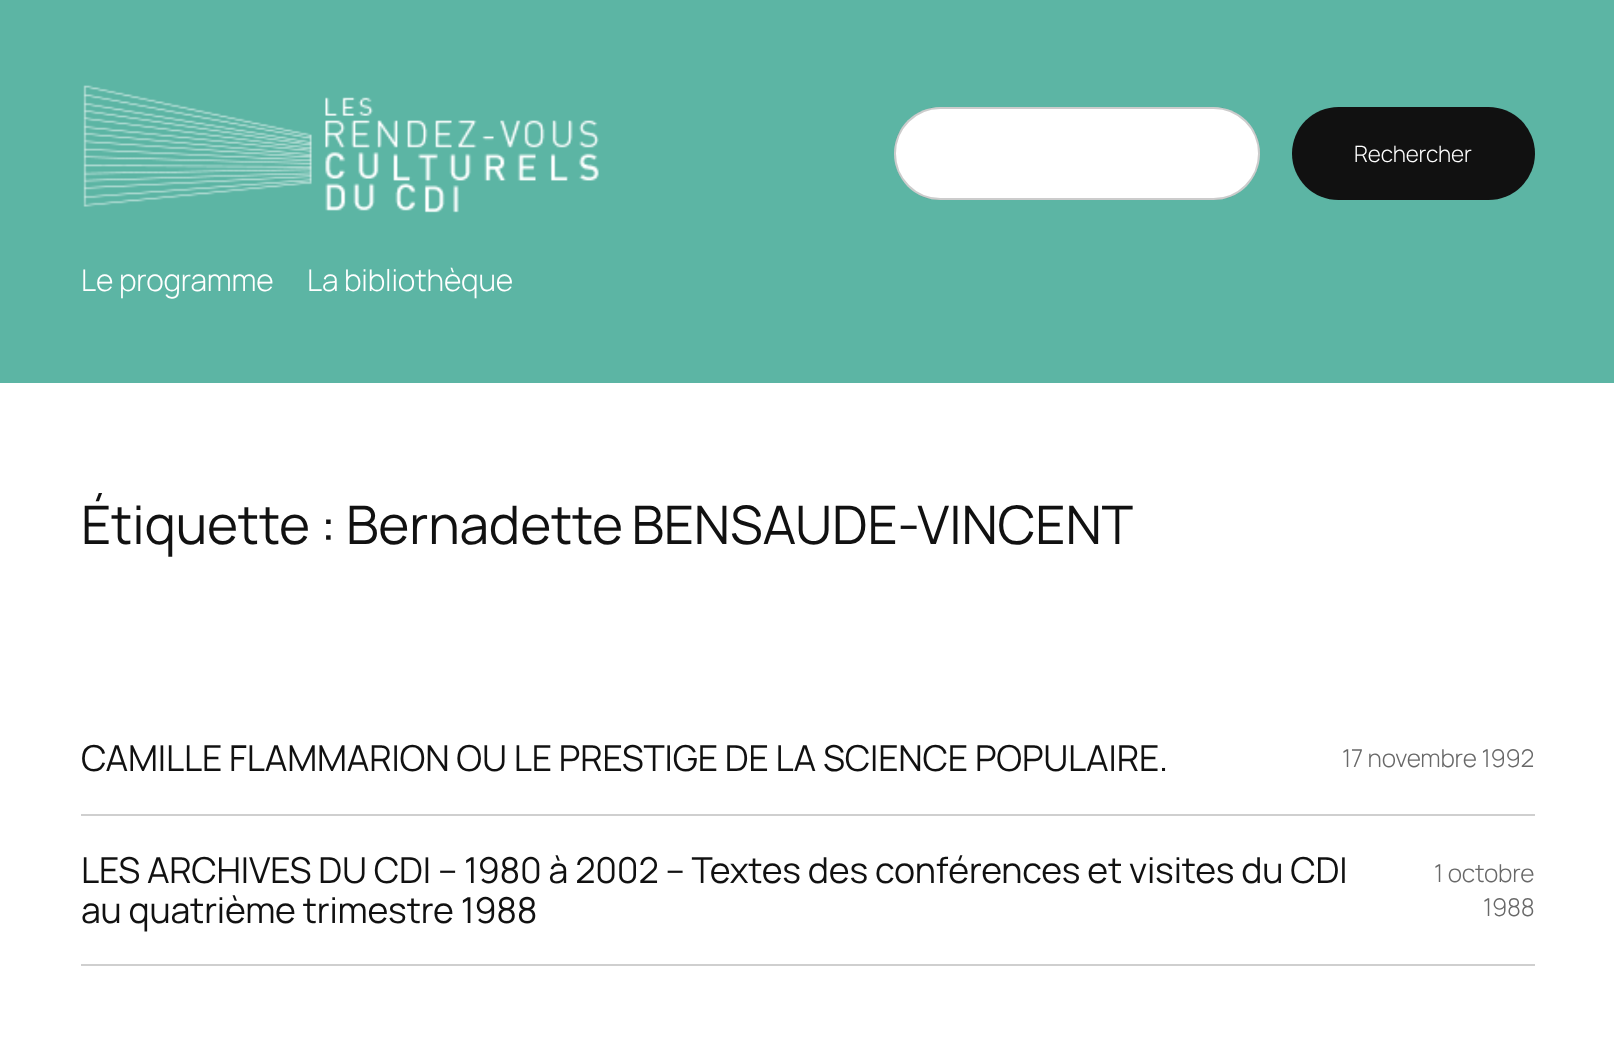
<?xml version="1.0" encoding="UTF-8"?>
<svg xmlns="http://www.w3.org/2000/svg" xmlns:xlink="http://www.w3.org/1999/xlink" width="1614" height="1052">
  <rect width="100%" height="100%" fill="#ffffff" />
  <rect width="1614" height="383" fill="#5cb5a4" />
  <image x="83" y="85" width="516" height="128" xlink:href="image1.png" />
  <rect x="894" y="107" width="366" height="93" rx="46.5" fill="#ffffff" />
  <rect x="895" y="108" width="364" height="91" rx="45.5" fill="none" stroke="#000000" stroke-opacity="0.2" stroke-width="2" />
  <rect x="1292" y="107" width="243" height="93" rx="46.5" fill="#111111" />
  <rect x="81" y="814" width="1454" height="2" fill="#cfcfcf" />
  <rect x="81" y="964" width="1454" height="2" fill="#cfcfcf" />
  <text x="1354" y="162" style="font-family: Manrope; font-size: 22.5px; font-weight: 300; letter-spacing: -0.18px; fill: #ffffff">Rechercher</text>
  <text x="81" y="291" style="font-family: Manrope; font-size: 30px; font-weight: 300; letter-spacing: -0.18px; fill: #ffffff">Le programme</text>
  <text x="307" y="291" style="font-family: Manrope; font-size: 30px; font-weight: 300; letter-spacing: -0.18px; fill: #ffffff">La bibliothèque</text>
  <text x="81" y="544" style="font-family: Manrope; font-size: 53.1px; letter-spacing: -0.18px; fill: #111111">Étiquette :</text>
  <text x="346" y="544" word-spacing="-2" style="font-family: Manrope; font-size: 53.1px; letter-spacing: -0.18px; fill: #111111">Bernadette BENSAUDE-VINCENT</text>
  <text x="81" y="771" style="font-family: Manrope; font-size: 35.65px; letter-spacing: -0.18px; fill: #111111">CAMILLE FLAMMARION OU LE PRESTIGE DE LA SCIENCE POPULAIRE.</text>
  <text x="1342" y="767" style="font-family: Manrope; font-size: 24.5px; font-weight: 300; letter-spacing: -0.18px; fill: #686868">17 novembre 1992</text>
  <text x="81" y="883" style="font-family: Manrope; font-size: 35.65px; letter-spacing: -0.18px; fill: #111111">LES ARCHIVES DU CDI – 1980 à 2002 – Textes des conférences et visites du CDI</text>
  <text x="81" y="923" style="font-family: Manrope; font-size: 35.65px; letter-spacing: -0.18px; fill: #111111">au quatrième trimestre 1988</text>
  <text x="1434" y="882" style="font-family: Manrope; font-size: 24.5px; font-weight: 300; letter-spacing: -0.18px; fill: #686868">1 octobre</text>
  <text x="1483" y="916" style="font-family: Manrope; font-size: 24.5px; font-weight: 300; letter-spacing: -0.18px; fill: #686868">1988</text>
</svg>
